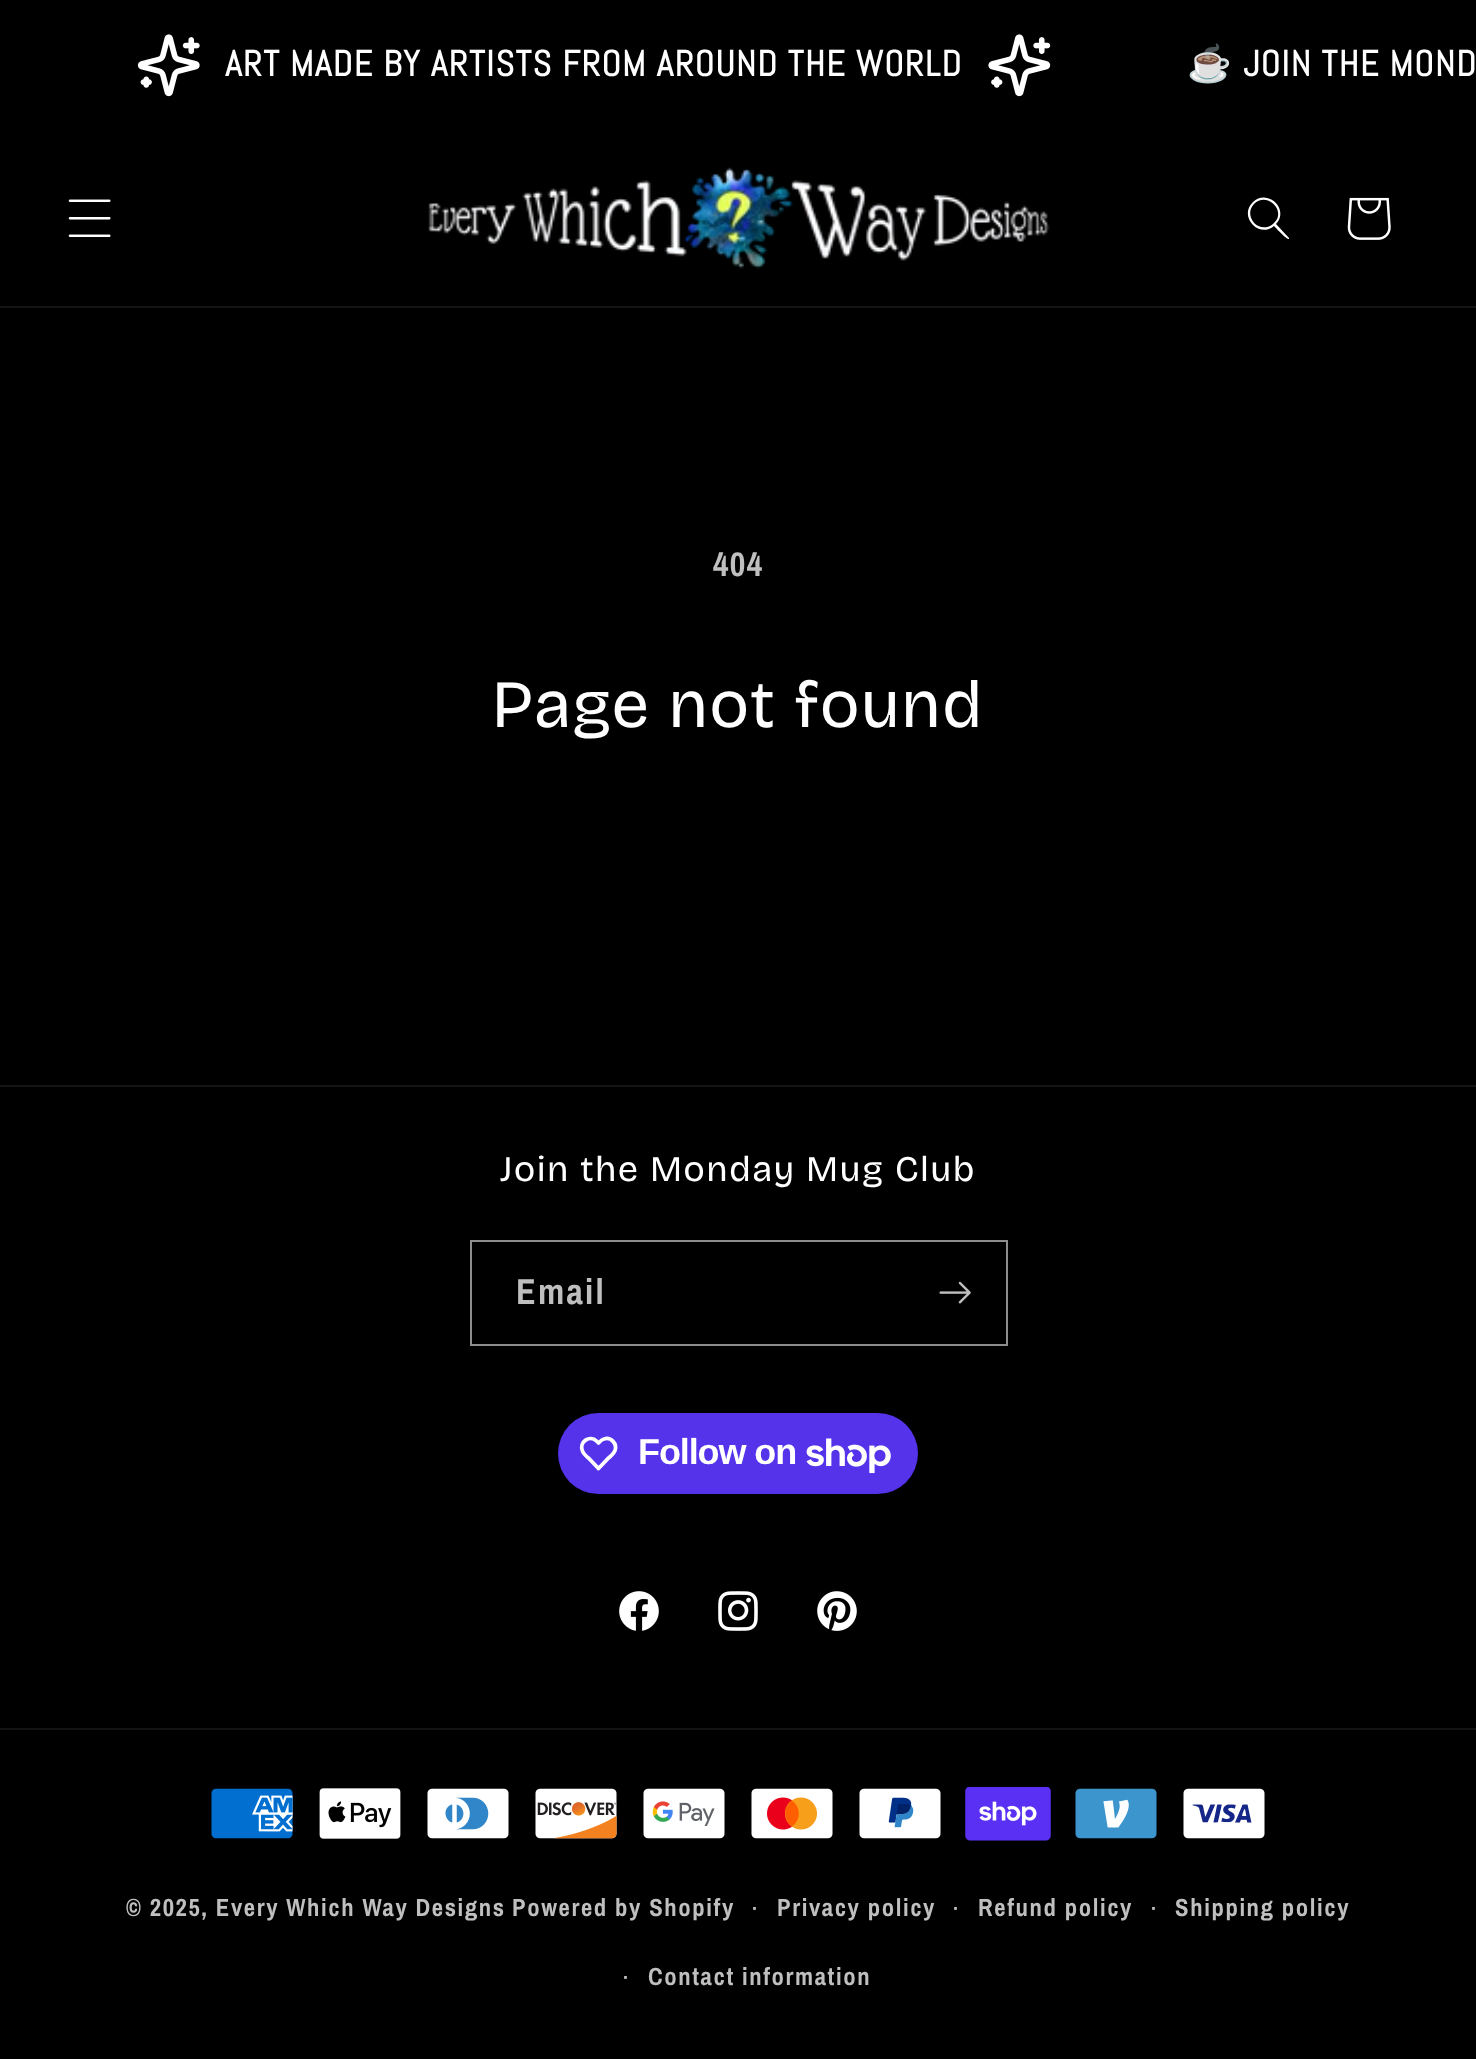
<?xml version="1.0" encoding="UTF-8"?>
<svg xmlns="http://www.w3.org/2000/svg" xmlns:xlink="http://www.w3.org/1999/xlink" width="1476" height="2059">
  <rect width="100%" height="100%" fill="#000000" />
  <image x="137" y="34" width="63" height="63" xlink:href="image1.png" />
  <image x="988" y="34" width="63" height="63" xlink:href="image2.png" />
  <rect y="306" width="1476" height="2" fill="#141414" />
  <image x="68" y="199" width="43" height="38" xlink:href="image3.png" />
  <image x="428" y="167" width="622" height="102" xlink:href="image4.png" />
  <path d="M 1274 223 c -13 13 -32 -6 -20 -19 c 13 -13 33 7 20 19 z m 0 3 c -15 13 -36 -10 -21 -24 c 14 -14 37 7 23 22 l 13 14 v 1 c -2 1 -13 -11 -15 -13 z" fill="#ffffff" fill-rule="evenodd" />
  <image x="1347" y="197" width="44" height="43" xlink:href="image5.png" />
  <rect y="1085" width="1476" height="2" fill="#141414" />
  <rect x="471" y="1241" width="536" height="104" fill="none" stroke="#8c8c8c" stroke-width="2" />
  <image x="939" y="1281" width="32" height="23" xlink:href="image6.png" />
  <rect x="558" y="1413" width="360" height="81" rx="40.5" fill="#5433eb" />
  <path d="M 596.5 1441 l 2 2 c 1.5 -1.5 3 -3.5 5.5 -4 c 7 -2.5 13.5 5 11 11.5 c -1.5 3.5 -4.5 6 -7 8 l -9.5 10 l -9.5 -10 c -2.5 -2 -5.5 -4.5 -6.5 -7.5 c -4 -9 7.5 -16.5 14 -10 z" fill="none" stroke="#ffffff" stroke-width="3.8" stroke-linejoin="round" />
  <image x="806" y="1438" width="85" height="36" xlink:href="image7.png" />
  <image x="619" y="1591" width="40" height="40" xlink:href="image8.png" />
  <image x="718" y="1591" width="40" height="40" xlink:href="image9.png" />
  <image x="817" y="1591" width="40" height="40" xlink:href="image10.png" />
  <rect y="1728" width="1476" height="2" fill="#141414" />
  <image x="211" y="1788" width="82" height="51" xlink:href="image11.png" />
  <image x="319" y="1788" width="82" height="51" xlink:href="image12.png" />
  <image x="427" y="1788" width="82" height="51" xlink:href="image13.png" />
  <image x="535" y="1788" width="82" height="51" xlink:href="image14.png" />
  <image x="643" y="1788" width="82" height="51" xlink:href="image15.png" />
  <image x="751" y="1788" width="82" height="51" xlink:href="image16.png" />
  <image x="859" y="1788" width="82" height="51" xlink:href="image17.png" />
  <image x="965" y="1787" width="86" height="54" xlink:href="image18.png" />
  <image x="1075" y="1788" width="82" height="51" xlink:href="image19.png" />
  <image x="1183" y="1788" width="82" height="51" xlink:href="image20.png" />
  <text x="225" y="76" style="font-family: Abel; font-size: 36px; font-weight: bold; letter-spacing: 1.35px; fill: #ffffff">ART MADE BY ARTISTS FROM AROUND THE WORLD</text>
  <text x="1187" y="76" style="font-family: Noto Color Emoji; font-size: 36px; font-weight: bold; letter-spacing: 1.35px; fill: #ffffff">☕</text>
  <text x="1243" y="76" style="font-family: Abel; font-size: 36px; font-weight: bold; letter-spacing: 1.35px; fill: #ffffff">JOIN THE MOND</text>
  <text x="713" y="576" style="font-family: Archivo Narrow; font-size: 34px; font-weight: bold; letter-spacing: 1.35px; fill: #bfbfbf">404</text>
  <text x="492" y="727" style="font-family: Bricolage Grotesque; font-size: 67.5px; letter-spacing: 1.35px; fill: #ffffff">Page not found</text>
  <text x="500" y="1181" style="font-family: 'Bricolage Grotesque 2'; font-size: 36px; letter-spacing: 1.35px; fill: #ffffff">Join the Monday Mug Club</text>
  <text x="516" y="1304" style="font-family: Archivo Narrow; font-size: 36px; font-weight: bold; letter-spacing: 2.25px; fill: #bfbfbf">Email</text>
  <text x="638" y="1464" style="font-family: Liberation Sans; font-size: 36px; font-weight: bold; letter-spacing: -1.1px; fill: #ffffff">Follow on</text>
  <text x="126" y="1916" style="font-family: Archivo Narrow; font-size: 24.75px; font-weight: bold; letter-spacing: 1.6px; fill: #bfbfbf">© 2025, Every Which Way Designs</text>
  <text x="512" y="1916" style="font-family: Archivo Narrow; font-size: 24.75px; font-weight: bold; letter-spacing: 1.6px; fill: #bfbfbf">Powered by Shopify</text>
  <text x="752" y="1916" style="font-family: Archivo Narrow; font-size: 22px; font-weight: bold; letter-spacing: 1.6px; fill: #bfbfbf">·</text>
  <text x="777" y="1916" style="font-family: Archivo Narrow; font-size: 24.75px; font-weight: bold; letter-spacing: 1.6px; fill: #bfbfbf">Privacy policy</text>
  <text x="953" y="1916" style="font-family: Archivo Narrow; font-size: 22px; font-weight: bold; letter-spacing: 1.6px; fill: #bfbfbf">·</text>
  <text x="978" y="1916" style="font-family: Archivo Narrow; font-size: 24.75px; font-weight: bold; letter-spacing: 1.6px; fill: #bfbfbf">Refund policy</text>
  <text x="1151" y="1916" style="font-family: Archivo Narrow; font-size: 22px; font-weight: bold; letter-spacing: 1.6px; fill: #bfbfbf">·</text>
  <text x="1175" y="1916" style="font-family: Archivo Narrow; font-size: 24.75px; font-weight: bold; letter-spacing: 1.6px; fill: #bfbfbf">Shipping policy</text>
  <text x="623" y="1985" style="font-family: Archivo Narrow; font-size: 22px; font-weight: bold; letter-spacing: 1.6px; fill: #bfbfbf">·</text>
  <text x="648" y="1985" style="font-family: Archivo Narrow; font-size: 24.75px; font-weight: bold; letter-spacing: 1.6px; fill: #bfbfbf">Contact information</text>
</svg>
